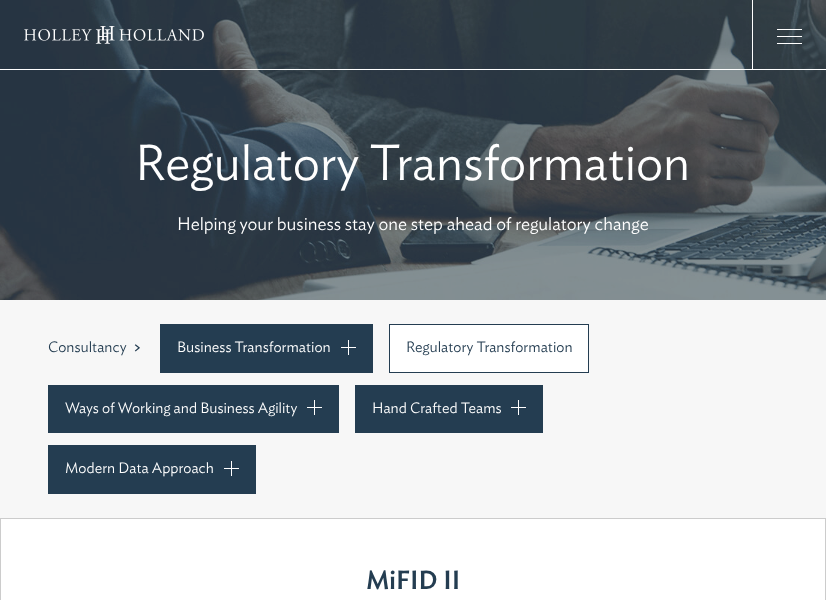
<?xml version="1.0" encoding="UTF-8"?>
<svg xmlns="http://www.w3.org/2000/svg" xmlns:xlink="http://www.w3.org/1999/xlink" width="826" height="600">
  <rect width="100%" height="100%" fill="#ffffff" />
  <image x="0" y="0" width="826" height="300" xlink:href="image2.png" />
  <rect y="69" width="826" height="1" fill="#ffffff" />
  <image x="24" y="26" width="180" height="18" xlink:href="image1.png" />
  <rect x="752" width="1" height="70" fill="#ffffff" />
  <rect x="777" y="36" width="25" height="1" fill="#ffffff" />
  <rect x="777" y="29" width="25" height="1" fill="#ffffff" />
  <rect x="777" y="43" width="25" height="1" fill="#ffffff" />
  <rect y="300" width="826" height="218" fill="#f7f7f7" />
  <rect x="160" y="324" width="213" height="49" fill="#243d51" />
  <rect x="341" y="347" width="15" height="1" fill="#ffffff" />
  <rect x="348" y="340" width="1" height="15" fill="#ffffff" />
  <rect x="389.5" y="324.5" width="199" height="48" fill="#ffffff" stroke="#243d51" />
  <rect x="48" y="385" width="291" height="48" fill="#243d51" />
  <rect x="307" y="407" width="15" height="1" fill="#ffffff" />
  <rect x="314" y="400" width="1" height="15" fill="#ffffff" />
  <rect x="355" y="385" width="188" height="48" fill="#243d51" />
  <rect x="511" y="407" width="15" height="1" fill="#ffffff" />
  <rect x="518" y="400" width="1" height="15" fill="#ffffff" />
  <rect x="48" y="445" width="208" height="49" fill="#243d51" />
  <rect x="224" y="468" width="15" height="1" fill="#ffffff" />
  <rect x="231" y="461" width="1" height="15" fill="#ffffff" />
  <rect x="0.5" y="518.5" width="825" height="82" fill="none" stroke="#cccccc" />
  <text x="135" y="180" style="font-family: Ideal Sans; font-size: 50px; font-weight: 300; fill: #ffffff">Regulatory Transformation</text>
  <text x="177" y="230" style="font-family: Ideal Sans; font-size: 18px; font-weight: 300; fill: #ffffff">Helping your business stay one step ahead of regulatory change</text>
  <text x="48" y="352" style="font-family: Ideal Sans; font-size: 15px; font-weight: 300; fill: #243d51">Consultancy</text>
  <text x="133" y="352" style="font-family: Ideal Sans; font-size: 15px; font-weight: 500; fill: #243d51">&gt;</text>
  <text x="177" y="352" style="font-family: Ideal Sans; font-size: 15px; font-weight: 300; fill: #ffffff">Business Transformation</text>
  <text x="406" y="352" style="font-family: Ideal Sans; font-size: 15px; font-weight: 300; fill: #243d51">Regulatory Transformation</text>
  <text x="65" y="413" style="font-family: Ideal Sans; font-size: 15px; font-weight: 300; fill: #ffffff">Ways of Working and Business Agility</text>
  <text x="372" y="413" style="font-family: Ideal Sans; font-size: 15px; font-weight: 300; fill: #ffffff">Hand Crafted Teams</text>
  <text x="65" y="473" style="font-family: Ideal Sans; font-size: 15px; font-weight: 300; fill: #ffffff">Modern Data Approach</text>
  <text x="366" y="589" style="font-family: Ideal Sans; font-size: 26px; font-weight: 500; fill: #243d51">MiFID II</text>
</svg>
